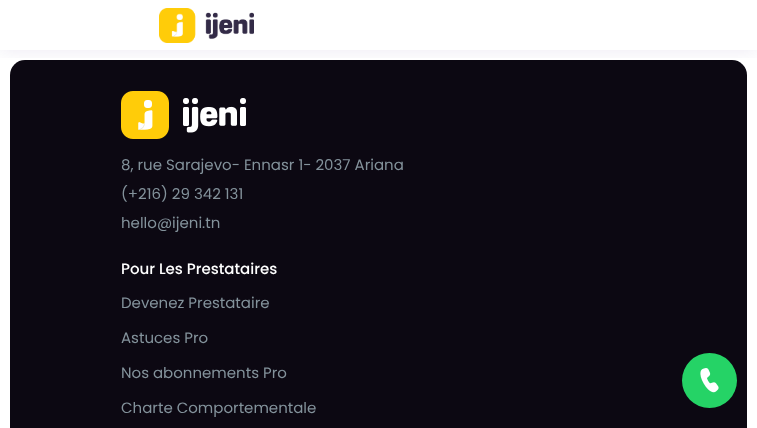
<?xml version="1.0" encoding="UTF-8"?>
<svg xmlns="http://www.w3.org/2000/svg" xmlns:xlink="http://www.w3.org/1999/xlink" width="757" height="428">
  <defs>
    <clipPath id="clip1"><rect x="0" y="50" width="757" height="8" /></clipPath>
  </defs>
  <rect width="100%" height="100%" fill="#ffffff" />
  <g clip-path="url(#clip1)">
    <rect width="757" height="50" fill="#3e1c83" fill-opacity="0.1" filter="blur(10px)" />
  </g>
  <image x="159" y="8" width="95" height="35" xlink:href="image1.png" />
  <rect x="10" y="60" width="737" height="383" rx="15" fill="#0c0812" />
  <image x="121" y="91" width="125" height="48" xlink:href="image2.png" />
  <circle cx="709.5" cy="380.5" r="27.5" fill="#25d366" />
  <image x="700" y="368" width="19" height="25" xlink:href="image3.png" />
  <text x="121" y="170" style="font-family: Poppins; font-size: 15px; fill: #83929b">8, rue Sarajevo- Ennasr 1- 2037 Ariana</text>
  <text x="121" y="199" style="font-family: Poppins; font-size: 15px; fill: #83929b">(+216) 29 342 131</text>
  <text x="121" y="228" style="font-family: Poppins; font-size: 15px; fill: #83929b">hello@ijeni.tn</text>
  <text x="121" y="274" style="font-family: Poppins; font-size: 15px; font-weight: 500; fill: #ffffff">Pour Les Prestataires</text>
  <text x="121" y="308" style="font-family: Poppins; font-size: 15px; fill: #83929b">Devenez Prestataire</text>
  <text x="121" y="343" style="font-family: Poppins; font-size: 15px; fill: #83929b">Astuces Pro</text>
  <text x="121" y="378" style="font-family: Poppins; font-size: 15px; fill: #83929b">Nos abonnements Pro</text>
  <text x="121" y="413" style="font-family: Poppins; font-size: 15px; fill: #83929b">Charte Comportementale</text>
</svg>
